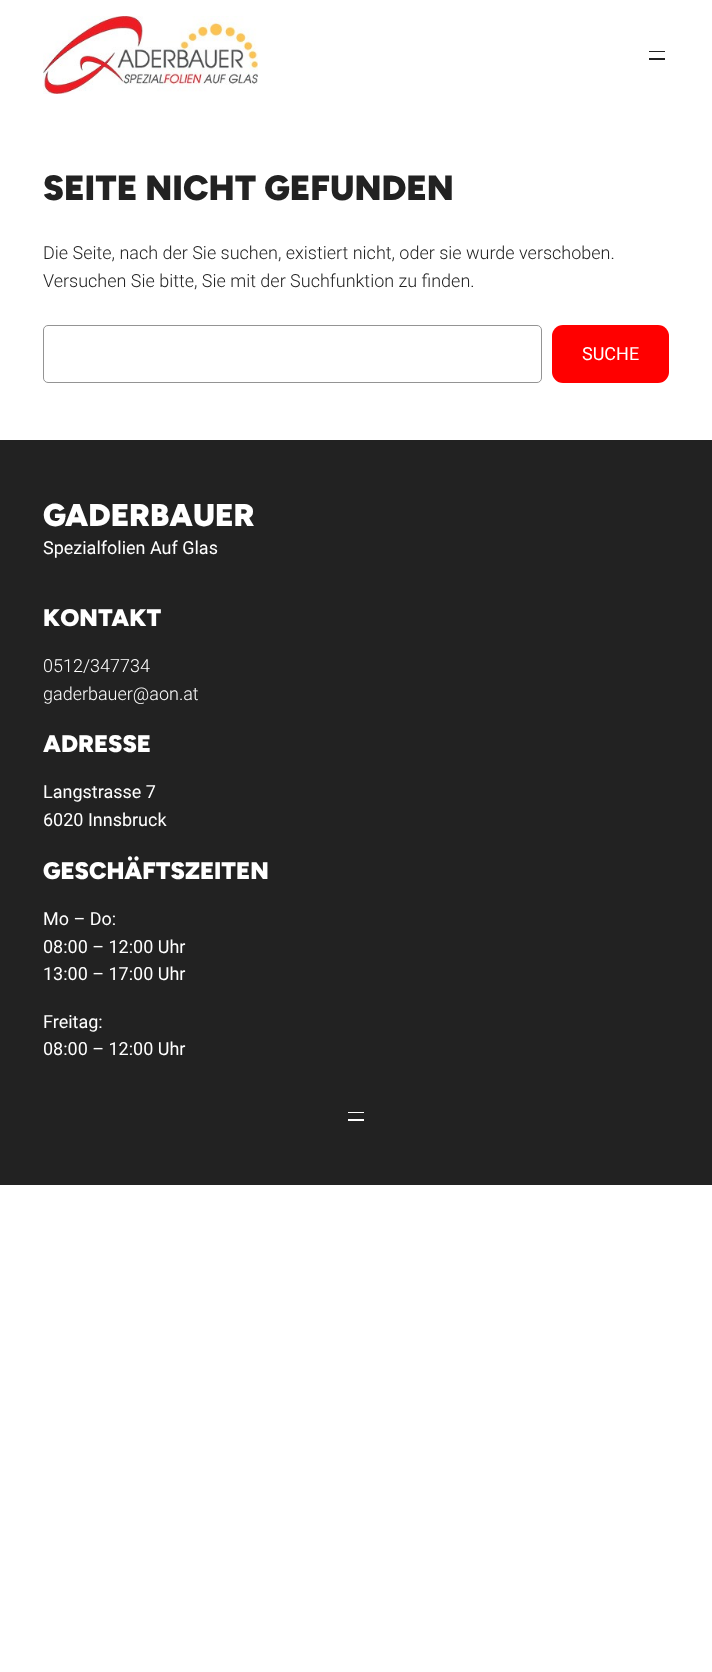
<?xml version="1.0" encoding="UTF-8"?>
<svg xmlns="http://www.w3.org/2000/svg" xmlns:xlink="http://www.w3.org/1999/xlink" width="712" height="1672">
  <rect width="100%" height="100%" fill="#ffffff" />
  <image x="43" y="16" width="215" height="78" xlink:href="image1.png" />
  <rect x="649" y="51" width="16" height="1" fill="#222222" />
  <rect x="649" y="58" width="16" height="2" fill="#222222" />
  <rect x="43.5" y="325.5" width="498" height="57" rx="4.5" fill="none" stroke="#949494" />
  <rect x="552" y="325" width="117" height="58" rx="11" fill="#ff0000" />
  <rect y="440" width="712" height="745" fill="#222222" />
  <rect x="348" y="1112" width="16" height="1" fill="#ffffff" />
  <rect x="348" y="1119" width="16" height="2" fill="#ffffff" />
  <text x="43" y="200" style="font-family: Figtree; font-size: 35px; font-weight: 900; fill: #222222">SEITE NICHT GEFUNDEN</text>
  <text x="43" y="259" style="font-family: Roboto; font-size: 18px; font-weight: 300; fill: #222222">Die Seite, nach der Sie suchen, existiert nicht, oder sie wurde verschoben.</text>
  <text x="43" y="287" style="font-family: Roboto; font-size: 18px; font-weight: 300; fill: #222222">Versuchen Sie bitte, Sie mit der Suchfunktion zu finden.</text>
  <text x="582" y="360" style="font-family: Roboto; font-size: 18px; fill: #ffffff">SUCHE</text>
  <text x="43" y="526" style="font-family: Figtree; font-size: 31.5px; font-weight: 900; fill: #ffffff">GADERBAUER</text>
  <text x="43" y="554" style="font-family: Roboto; font-size: 18px; fill: #ffffff">Spezialfolien Auf Glas</text>
  <text x="43" y="626" style="font-family: Figtree; font-size: 24px; font-weight: 900; fill: #ffffff">KONTAKT</text>
  <text x="43" y="672" style="font-family: Roboto; font-size: 18px; font-weight: 300; fill: #ffffff">0512/347734</text>
  <text x="43" y="700" style="font-family: Roboto; font-size: 18px; font-weight: 300; fill: #ffffff">gaderbauer@aon.at</text>
  <text x="43" y="752" style="font-family: Figtree; font-size: 24px; font-weight: 900; fill: #ffffff">ADRESSE</text>
  <text x="43" y="798" style="font-family: Roboto; font-size: 18px; fill: #ffffff">Langstrasse 7</text>
  <text x="43" y="826" style="font-family: Roboto; font-size: 18px; fill: #ffffff">6020 Innsbruck</text>
  <text x="43" y="879" style="font-family: Figtree; font-size: 24px; font-weight: 900; fill: #ffffff">GESCHÄFTSZEITEN</text>
  <text x="43" y="925" style="font-family: Roboto; font-size: 18px; fill: #ffffff">Mo – Do:</text>
  <text x="43" y="953" style="font-family: Roboto; font-size: 18px; fill: #ffffff">08:00 – 12:00 Uhr</text>
  <text x="43" y="980" style="font-family: Roboto; font-size: 18px; fill: #ffffff">13:00 – 17:00 Uhr</text>
  <text x="43" y="1028" style="font-family: Roboto; font-size: 18px; fill: #ffffff">Freitag:</text>
  <text x="43" y="1055" style="font-family: Roboto; font-size: 18px; fill: #ffffff">08:00 – 12:00 Uhr</text>
</svg>
